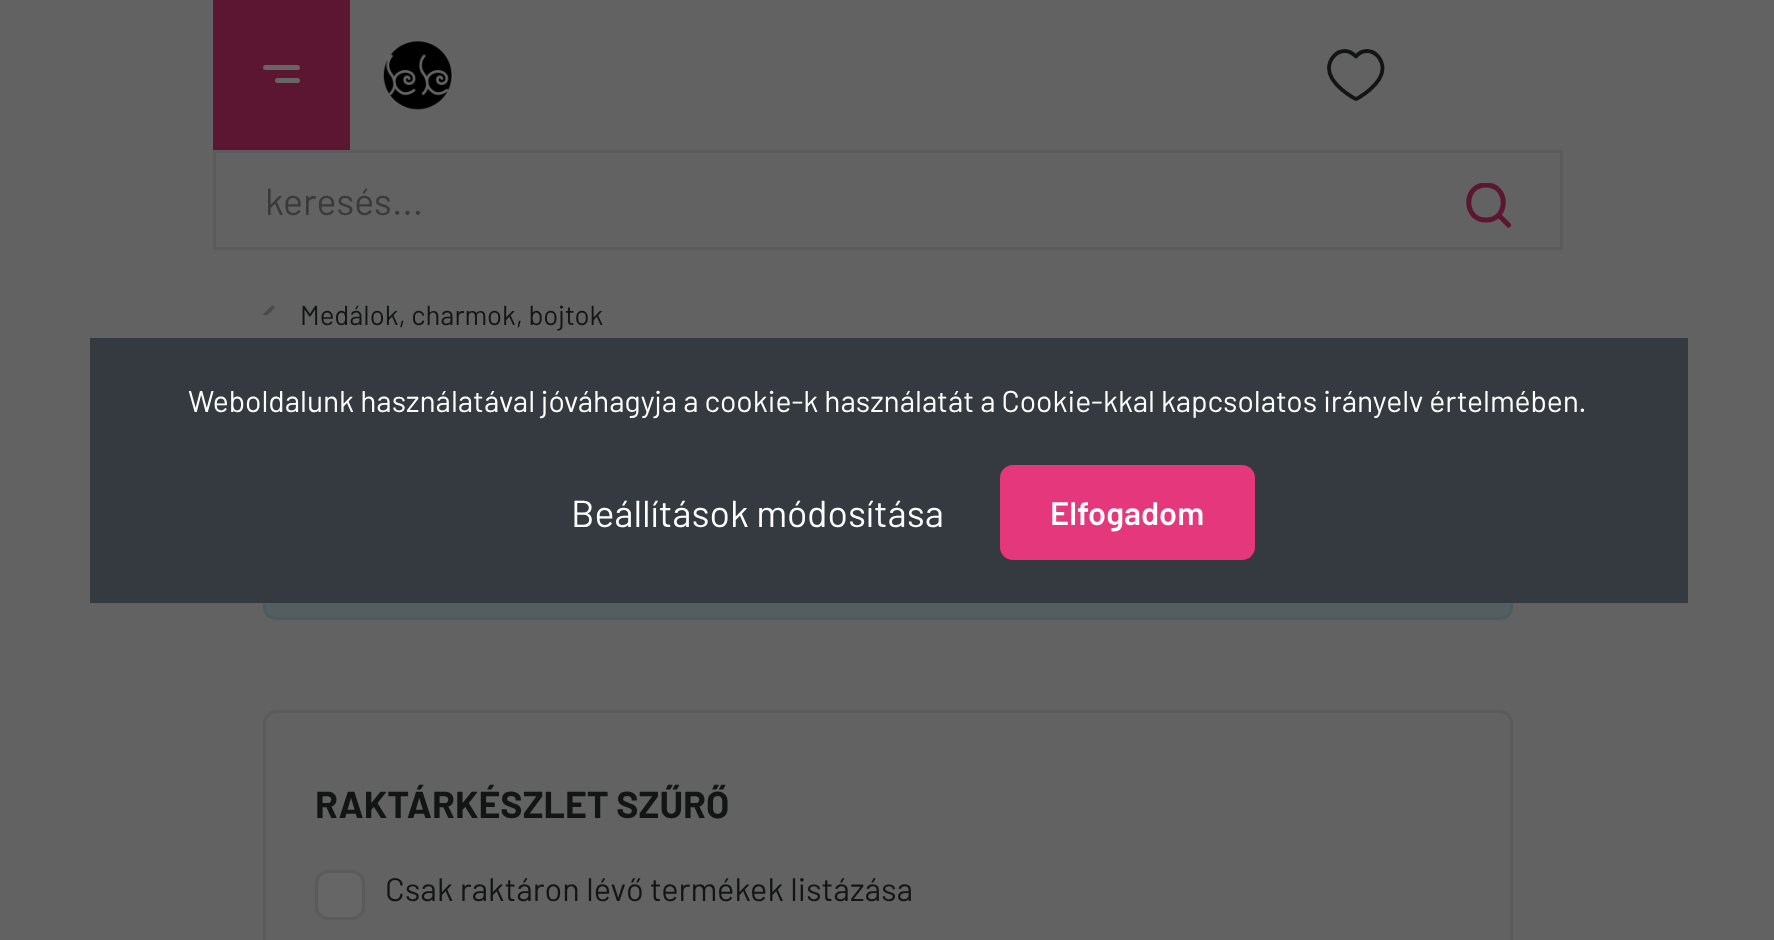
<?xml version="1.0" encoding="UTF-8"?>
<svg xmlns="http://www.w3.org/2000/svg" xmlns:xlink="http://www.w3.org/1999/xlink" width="1774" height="940">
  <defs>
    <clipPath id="clip1"><rect x="1465" y="183" width="48" height="45" /></clipPath>
  </defs>
  <rect width="100%" height="100%" fill="#626262" />
  <rect x="213" width="137" height="150" fill="#5c1632" />
  <rect x="263" y="65" width="37" height="5" rx="2.5" fill="#666666" />
  <rect x="275" y="78" width="25" height="5" rx="2.5" fill="#666666" />
  <image x="382" y="40" width="71" height="71" xlink:href="image1.png" />
  <path d="M 1367 51 c 9 0 15.5 9 15.5 17.5 c 0 16.5 -26 30.5 -26.5 30.5 c -0.5 0 -27 -14 -27 -30.5 c 0 -8.5 6.5 -17.5 16 -17.5 c 5 0 8.5 3 11 5.5 c 2 -2.5 5.5 -5.5 11 -5.5 z" fill="none" stroke="#131414" stroke-width="3.8" stroke-linecap="round" stroke-linejoin="round" />
  <rect x="214.5" y="151.5" width="1347" height="97" fill="none" stroke="#5b5b5e" stroke-width="3" />
  <g clip-path="url(#clip1)">
    <path d="M 1508.5 225 l -10 -10 m -12.5 5 c -23 0 -23 -35 0 -35 c 23 0 23 35 0 35 z" fill="none" stroke="#5c1632" stroke-width="5" stroke-linecap="round" stroke-linejoin="round" />
  </g>
  <image x="263" y="305" width="12" height="10" xlink:href="image2.png" />
  <rect x="264.5" y="504.5" width="1247" height="114" rx="11.5" fill="#545e60" stroke="#4c5c5e" stroke-width="3" />
  <rect x="264.5" y="711.5" width="1247" height="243" rx="11.5" fill="none" stroke="#5b5b5e" stroke-width="3" />
  <rect x="316.5" y="871.5" width="47" height="47" rx="11.5" fill="#666666" stroke="#5b5b5e" stroke-width="3" />
  <rect x="90" y="338" width="1598" height="265" fill="#343a40" />
  <rect x="1000" y="465" width="255" height="95" rx="13" fill="#e5377c" />
  <text x="265" y="215" style="font-family: Barlow; font-size: 37.5px; fill: #3a3a3b">keresés...</text>
  <text x="300" y="325" style="font-family: Barlow; font-size: 27.5px; fill: #131414">Medálok, charmok, bojtok</text>
  <text x="315" y="818" style="font-family: Barlow; font-size: 37.5px; font-weight: bold; fill: #131414">RAKTÁRKÉSZLET SZŰRŐ</text>
  <text x="385" y="901" style="font-family: Barlow; font-size: 32.5px; fill: #131414">Csak raktáron lévő termékek listázása</text>
  <text x="188" y="412" style="font-family: Barlow; font-size: 30px; fill: #ffffff">Weboldalunk használatával jóváhagyja a cookie-k használatát a Cookie-kkal kapcsolatos irányelv értelmében.</text>
  <text x="571" y="527" style="font-family: Barlow; font-size: 37.5px; fill: #ffffff">Beállítások módosítása</text>
  <text x="1050" y="525" style="font-family: Barlow; font-size: 32.5px; font-weight: 600; fill: #ffffff">Elfogadom</text>
</svg>
